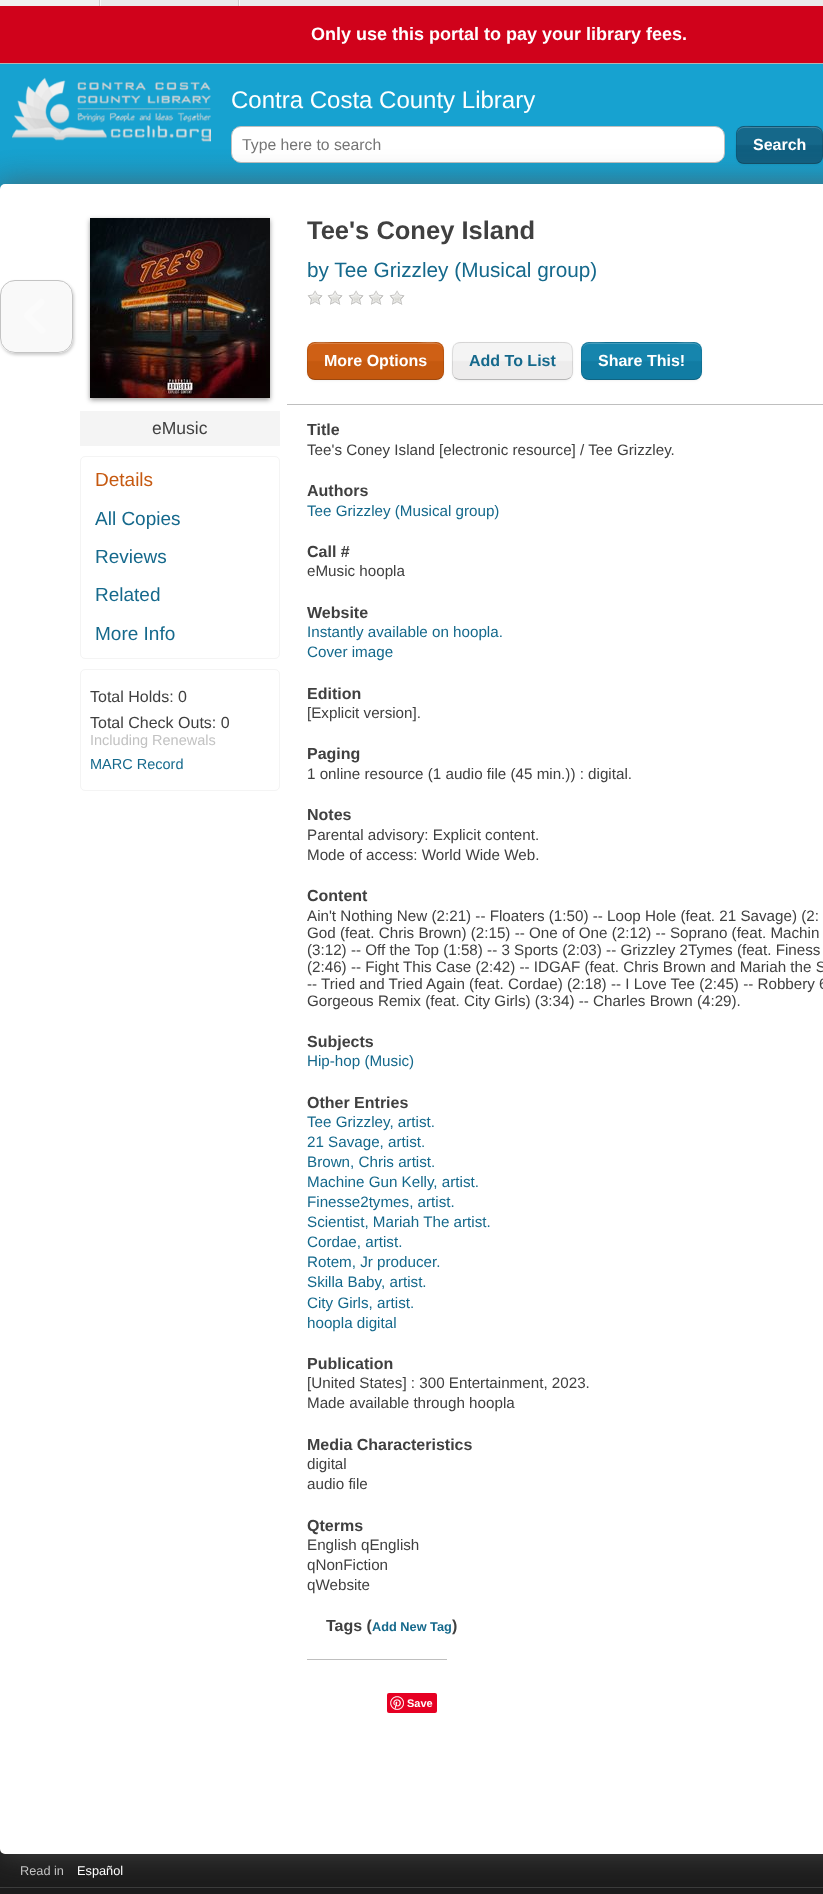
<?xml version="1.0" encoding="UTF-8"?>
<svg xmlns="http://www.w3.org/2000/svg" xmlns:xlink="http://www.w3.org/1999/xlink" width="823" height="1894">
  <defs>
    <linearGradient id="g1" gradientUnits="userSpaceOnUse" x1="500" y1="64" x2="500" y2="234"><stop offset="0.5" stop-color="#17a2d0" /><stop offset="1" stop-color="#158fb8" /></linearGradient>
    <clipPath id="clip1"><rect x="736" y="126" width="87" height="38" rx="8" /></clipPath>
    <linearGradient id="g2" gradientUnits="userSpaceOnUse" x1="780" y1="91" x2="780" y2="127"><stop offset="0.48" stop-color="#15688a" /><stop offset="0.52" stop-color="#105f80" /></linearGradient>
    <linearGradient id="g3" gradientUnits="userSpaceOnUse" x1="780" y1="127" x2="780" y2="163"><stop offset="0.48" stop-color="#15688a" /><stop offset="0.52" stop-color="#105f80" /></linearGradient>
    <linearGradient id="g4" gradientUnits="userSpaceOnUse" x1="780" y1="163" x2="780" y2="199"><stop offset="0.48" stop-color="#15688a" /><stop offset="0.52" stop-color="#105f80" /></linearGradient>
    <linearGradient id="g5" gradientUnits="userSpaceOnUse" x1="500" y1="1804" x2="500" y2="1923"><stop offset="0" stop-color="#3a3a3a" /><stop offset="0.3" stop-color="#1c1c1c" /></linearGradient>
    <clipPath id="clip2"><path d="M 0 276 h 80 v 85 h -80 z m 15 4 h 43 c 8.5 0 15 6.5 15 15 v 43 c 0 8.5 -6.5 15 -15 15 h -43 c -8.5 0 -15 -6.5 -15 -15 v -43 c 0 -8.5 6.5 -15 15 -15 z" clip-rule="evenodd" /></clipPath>
    <clipPath id="clip3"><rect x="307" y="342" width="137" height="38" rx="8" /></clipPath>
    <linearGradient id="g6" gradientUnits="userSpaceOnUse" x1="376" y1="307" x2="376" y2="343"><stop offset="0.48" stop-color="#cf6015" /><stop offset="0.52" stop-color="#c5590f" /></linearGradient>
    <linearGradient id="g7" gradientUnits="userSpaceOnUse" x1="376" y1="343" x2="376" y2="379"><stop offset="0.48" stop-color="#cf6015" /><stop offset="0.52" stop-color="#c5590f" /></linearGradient>
    <linearGradient id="g8" gradientUnits="userSpaceOnUse" x1="376" y1="379" x2="376" y2="415"><stop offset="0.48" stop-color="#cf6015" /><stop offset="0.52" stop-color="#c5590f" /></linearGradient>
    <clipPath id="clip4"><rect x="452" y="342" width="121" height="38" rx="8" /></clipPath>
    <linearGradient id="g9" gradientUnits="userSpaceOnUse" x1="513" y1="307" x2="513" y2="343"><stop offset="0.48" stop-color="#f4f4f4" /><stop offset="0.52" stop-color="#edecec" /></linearGradient>
    <linearGradient id="g10" gradientUnits="userSpaceOnUse" x1="513" y1="343" x2="513" y2="379"><stop offset="0.48" stop-color="#f4f4f4" /><stop offset="0.52" stop-color="#edecec" /></linearGradient>
    <clipPath id="clip5"><rect x="581" y="342" width="121" height="38" rx="8" /></clipPath>
    <linearGradient id="g11" gradientUnits="userSpaceOnUse" x1="642" y1="307" x2="642" y2="343"><stop offset="0.48" stop-color="#1685ad" /><stop offset="0.52" stop-color="#117ca3" /></linearGradient>
    <linearGradient id="g12" gradientUnits="userSpaceOnUse" x1="642" y1="343" x2="642" y2="379"><stop offset="0.48" stop-color="#1685ad" /><stop offset="0.52" stop-color="#117ca3" /></linearGradient>
    <linearGradient id="g13" gradientUnits="userSpaceOnUse" x1="642" y1="379" x2="642" y2="415"><stop offset="0.48" stop-color="#1685ad" /><stop offset="0.52" stop-color="#117ca3" /></linearGradient>
  </defs>
  <rect width="100%" height="100%" fill="#eaeaea" />
  <rect x="100" width="1" height="6" fill="#f8f8f8" />
  <rect width="100" height="6" fill="#f0f0f0" />
  <rect x="99" width="1" height="6" fill="#cecece" />
  <rect x="239" width="1" height="6" fill="#f8f8f8" />
  <rect x="238" width="1" height="6" fill="#cecece" />
  <rect y="6" width="823" height="57" fill="#d0021b" />
  <rect y="64" width="823" height="125" fill="url(#g1)" />
  <rect y="63" width="823" height="1" fill="#b4b4b4" />
  <image x="12" y="77" width="199" height="65" xlink:href="image1.png" />
  <rect x="231.5" y="126.5" width="493" height="36" rx="9.5" fill="#ffffff" stroke="#bfbfbf" />
  <rect x="736" y="127" width="87" height="38" rx="8" fill="#000000" fill-opacity="0.05" filter="blur(1px)" />
  <g clip-path="url(#clip1)">
    <rect x="736" y="126" width="87" height="1" fill="url(#g2)" />
    <rect x="736" y="127" width="87" height="36" fill="url(#g3)" />
    <rect x="736" y="163" width="87" height="1" fill="url(#g4)" />
  </g>
  <path d="M 744 128 h 71 c 4 0 7 3 7 7 c 0 -11 -11 -8 -19 -8 h -47 c -8 0 -19 -3 -19 8 c 0 -4 3 -7 7 -7 z" fill="#4486a1" />
  <path d="M 820.5 161.5 c -1.5 1 -3.5 2 -5.5 2 h -71 c -2 0 -4 -1 -5.5 -2" fill="none" stroke="#000000" stroke-opacity="0.25" />
  <path d="M 738.5 161.5 c -3.5 -4 -2 -15.5 -2 -20 v -9 c 2 -8.5 14 -6 19.5 -6 h 47 c 20 0 19.5 -0.5 19.5 18.5 c 0 4.5 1.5 12.5 -2 16.5" fill="none" stroke="#000000" stroke-opacity="0.1" />
  <rect y="1849" width="823" height="45" fill="url(#g5)" />
  <rect y="1887" width="823" height="1" fill="#3c3c3c" />
  <rect y="184" width="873" height="1670" rx="5" fill="#555555" fill-opacity="0.7" filter="blur(15px)" />
  <rect y="184" width="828" height="1670" rx="5" fill="#ffffff" />
  <g clip-path="url(#clip2)">
    <rect x="1" y="282" width="73" height="73" rx="15" fill="#000000" fill-opacity="0.2" filter="blur(1.5px)" />
  </g>
  <image x="1" y="280" width="71" height="72" xlink:href="image2.png" />
  <rect x="0.5" y="280.5" width="72" height="72" rx="14.5" fill="none" stroke="#c4c4c4" />
  <rect x="287" y="404" width="536" height="1" fill="#bfbfbf" />
  <image x="307" y="290" width="16" height="15" xlink:href="image3.png" />
  <image x="327" y="290" width="16" height="15" xlink:href="image3.png" />
  <image x="348" y="290" width="16" height="15" xlink:href="image3.png" />
  <image x="368" y="290" width="16" height="15" xlink:href="image3.png" />
  <image x="389" y="290" width="16" height="15" xlink:href="image3.png" />
  <rect x="307" y="343" width="137" height="38" rx="8" fill="#000000" fill-opacity="0.05" filter="blur(1px)" />
  <g clip-path="url(#clip3)">
    <rect x="307" y="342" width="137" height="1" fill="url(#g6)" />
    <rect x="307" y="343" width="137" height="36" fill="url(#g7)" />
    <rect x="307" y="379" width="137" height="1" fill="url(#g8)" />
  </g>
  <path d="M 315 344 h 121 c 4 0 7 3 7 7 c 0 -13 -21 -8 -27 -8 h -81 c -6 0 -27 -5 -27 8 c 0 -4 3 -7 7 -7 z" fill="#ffffff" fill-opacity="0.2" />
  <path d="M 441.5 377.5 c -1.5 1 -3.5 2 -5.5 2 h -121 c -2 0 -4 -1 -5.5 -2" fill="none" stroke="#000000" stroke-opacity="0.25" />
  <path d="M 309.5 377.5 c -3 -3.5 -2 -8.5 -2 -13 c 0 -26 -1 -22 27.5 -22 h 81 c 28.5 0 27.5 -4 27.5 22 c 0 4.5 1 9.5 -2 13" fill="none" stroke="#000000" stroke-opacity="0.1" />
  <rect x="452" y="343" width="121" height="38" rx="8" fill="#000000" fill-opacity="0.05" filter="blur(1px)" />
  <g clip-path="url(#clip4)">
    <rect x="452" y="342" width="121" height="1" fill="url(#g9)" />
    <rect x="452" y="343" width="121" height="36" fill="url(#g10)" />
  </g>
  <path d="M 570.5 377.5 c -1.5 1 -3.5 2 -5.5 2 h -105 c -2 0 -4 -1 -5.5 -2" fill="none" stroke="#000000" stroke-opacity="0.25" />
  <path d="M 454.5 377.5 c -3 -3.5 -2 -8.5 -2 -13 c 0 -24.5 -1.5 -22 25 -22 h 70 c 26.5 0 25 -2.5 25 22 c 0 4.5 1 9.5 -2 13" fill="none" stroke="#000000" stroke-opacity="0.1" />
  <rect x="581" y="343" width="121" height="38" rx="8" fill="#000000" fill-opacity="0.05" filter="blur(1px)" />
  <g clip-path="url(#clip5)">
    <rect x="581" y="342" width="121" height="1" fill="url(#g11)" />
    <rect x="581" y="343" width="121" height="36" fill="url(#g12)" />
    <rect x="581" y="379" width="121" height="1" fill="url(#g13)" />
  </g>
  <path d="M 589 344 h 105 c 4 0 7 3 7 7 c 0 -12 -18 -8 -25 -8 h -70 c -6 0 -24 -4 -24 8 c 0 -4 3 -7 7 -7 z" fill="#ffffff" fill-opacity="0.2" />
  <path d="M 699.5 377.5 c -1.5 1 -3.5 2 -5.5 2 h -105 c -2 0 -4 -1 -5.5 -2" fill="none" stroke="#000000" stroke-opacity="0.25" />
  <path d="M 583.5 377.5 c -3 -3.5 -2 -8.5 -2 -13 c 0 -24.5 -1.5 -22 25 -22 h 70 c 26.5 0 25 -2.5 25 22 c 0 4.5 1 9.5 -2 13" fill="none" stroke="#000000" stroke-opacity="0.1" />
  <rect x="307" y="1659" width="140" height="1" fill="#bfbfbf" />
  <rect x="387" y="1693" width="50" height="20" rx="2" fill="#e60023" />
  <image x="390" y="1696" width="14" height="14" xlink:href="image4.png" />
  <rect x="90" y="220" width="180" height="180" fill="#000000" fill-opacity="0.4" filter="blur(2.5px)" />
  <image x="90" y="218" width="180" height="180" xlink:href="image5.png" />
  <rect x="80" y="411" width="200" height="35" fill="#f4f4f4" />
  <rect x="80.5" y="456.5" width="199" height="202" rx="4.5" fill="none" stroke="#f4f4f4" />
  <rect x="80.5" y="669.5" width="199" height="121" rx="4.5" fill="none" stroke="#f4f4f4" />
  <text x="311" y="40" style="font-family: Liberation Sans; font-size: 18px; font-weight: bold; fill: #ffffff">Only use this portal to pay your library fees.</text>
  <text x="231" y="108" style="font-family: Liberation Sans; font-size: 24px; fill: #ffffff">Contra Costa County Library</text>
  <text x="242" y="150" style="font-family: Liberation Sans; font-size: 15.75px; fill: #757575">Type here to search</text>
  <text x="753" y="150" style="font-family: Liberation Sans; font-size: 16px; font-weight: bold; fill: #ffffff">Search</text>
  <text x="307" y="239" style="font-family: Liberation Sans; font-size: 25.5px; font-weight: bold; fill: #404040">Tee's Coney Island</text>
  <text x="307" y="277" style="font-family: Liberation Sans; font-size: 20.75px; fill: #15698c">by Tee Grizzley (Musical group)</text>
  <text x="324" y="366" style="font-family: Liberation Sans; font-size: 16px; font-weight: bold; fill: #ffffff">More Options</text>
  <text x="469" y="366" style="font-family: Liberation Sans; font-size: 16px; font-weight: bold; fill: #15698c">Add To List</text>
  <text x="598" y="366" style="font-family: Liberation Sans; font-size: 16px; font-weight: bold; fill: #ffffff">Share This!</text>
  <text x="307" y="435" style="font-family: Liberation Sans; font-size: 16px; font-weight: bold; fill: #404040">Title</text>
  <text x="307" y="455" style="font-family: Liberation Sans; font-size: 15.2px; fill: #404040">Tee's Coney Island [electronic resource] / Tee Grizzley.</text>
  <text x="307" y="496" style="font-family: Liberation Sans; font-size: 16px; font-weight: bold; fill: #404040">Authors</text>
  <text x="307" y="516" style="font-family: Liberation Sans; font-size: 15.2px; fill: #15698c">Tee Grizzley (Musical group)</text>
  <text x="307" y="557" style="font-family: Liberation Sans; font-size: 16px; font-weight: bold; fill: #404040">Call #</text>
  <text x="307" y="576" style="font-family: Liberation Sans; font-size: 15.2px; fill: #404040">eMusic hoopla</text>
  <text x="307" y="618" style="font-family: Liberation Sans; font-size: 16px; font-weight: bold; fill: #404040">Website</text>
  <text x="307" y="637" style="font-family: Liberation Sans; font-size: 15.2px; fill: #15698c">Instantly available on hoopla.</text>
  <text x="307" y="657" style="font-family: Liberation Sans; font-size: 15.2px; fill: #15698c">Cover image</text>
  <text x="307" y="699" style="font-family: Liberation Sans; font-size: 16px; font-weight: bold; fill: #404040">Edition</text>
  <text x="307" y="718" style="font-family: Liberation Sans; font-size: 15.2px; fill: #404040">[Explicit version].</text>
  <text x="307" y="759" style="font-family: Liberation Sans; font-size: 16px; font-weight: bold; fill: #404040">Paging</text>
  <text x="307" y="779" style="font-family: Liberation Sans; font-size: 15.2px; fill: #404040">1 online resource (1 audio file (45 min.)) : digital.</text>
  <text x="307" y="820" style="font-family: Liberation Sans; font-size: 16px; font-weight: bold; fill: #404040">Notes</text>
  <text x="307" y="840" style="font-family: Liberation Sans; font-size: 15.2px; fill: #404040">Parental advisory: Explicit content.</text>
  <text x="307" y="860" style="font-family: Liberation Sans; font-size: 15.2px; fill: #404040">Mode of access: World Wide Web.</text>
  <text x="307" y="901" style="font-family: Liberation Sans; font-size: 16px; font-weight: bold; fill: #404040">Content</text>
  <text x="307" y="921" style="font-family: Liberation Sans; font-size: 15.2px; fill: #404040">Ain't Nothing New (2:21) -- Floaters (1:50) -- Loop Hole (feat. 21 Savage) (2:</text>
  <text x="307" y="938" style="font-family: Liberation Sans; font-size: 15.2px; fill: #404040">God (feat. Chris Brown) (2:15) -- One of One (2:12) -- Soprano (feat. Machin</text>
  <text x="307" y="955" style="font-family: Liberation Sans; font-size: 15.2px; fill: #404040">(3:12) -- Off the Top (1:58) -- 3 Sports (2:03) -- Grizzley 2Tymes (feat. Finess</text>
  <text x="307" y="972" style="font-family: Liberation Sans; font-size: 15.2px; fill: #404040">(2:46) -- Fight This Case (2:42) -- IDGAF (feat. Chris Brown and Mariah the S</text>
  <text x="307" y="989" style="font-family: Liberation Sans; font-size: 15.2px; fill: #404040">-- Tried and Tried Again (feat. Cordae) (2:18) -- I Love Tee (2:45) -- Robbery 6</text>
  <text x="307" y="1006" style="font-family: Liberation Sans; font-size: 15.2px; fill: #404040">Gorgeous Remix (feat. City Girls) (3:34) -- Charles Brown (4:29).</text>
  <text x="307" y="1047" style="font-family: Liberation Sans; font-size: 16px; font-weight: bold; fill: #404040">Subjects</text>
  <text x="307" y="1066" style="font-family: Liberation Sans; font-size: 15.2px; fill: #15698c">Hip-hop (Music)</text>
  <text x="307" y="1108" style="font-family: Liberation Sans; font-size: 16px; font-weight: bold; fill: #404040">Other Entries</text>
  <text x="307" y="1127" style="font-family: Liberation Sans; font-size: 15.2px; fill: #15698c">Tee Grizzley, artist.</text>
  <text x="307" y="1147" style="font-family: Liberation Sans; font-size: 15.2px; fill: #15698c">21 Savage, artist.</text>
  <text x="307" y="1167" style="font-family: Liberation Sans; font-size: 15.2px; fill: #15698c">Brown, Chris artist.</text>
  <text x="307" y="1187" style="font-family: Liberation Sans; font-size: 15.2px; fill: #15698c">Machine Gun Kelly, artist.</text>
  <text x="307" y="1207" style="font-family: Liberation Sans; font-size: 15.2px; fill: #15698c">Finesse2tymes, artist.</text>
  <text x="307" y="1227" style="font-family: Liberation Sans; font-size: 15.2px; fill: #15698c">Scientist, Mariah The artist.</text>
  <text x="307" y="1247" style="font-family: Liberation Sans; font-size: 15.2px; fill: #15698c">Cordae, artist.</text>
  <text x="307" y="1267" style="font-family: Liberation Sans; font-size: 15.2px; fill: #15698c">Rotem, Jr producer.</text>
  <text x="307" y="1287" style="font-family: Liberation Sans; font-size: 15.2px; fill: #15698c">Skilla Baby, artist.</text>
  <text x="307" y="1308" style="font-family: Liberation Sans; font-size: 15.2px; fill: #15698c">City Girls, artist.</text>
  <text x="307" y="1328" style="font-family: Liberation Sans; font-size: 15.2px; fill: #15698c">hoopla digital</text>
  <text x="307" y="1369" style="font-family: Liberation Sans; font-size: 16px; font-weight: bold; fill: #404040">Publication</text>
  <text x="307" y="1388" style="font-family: Liberation Sans; font-size: 15.2px; fill: #404040">[United States] : 300 Entertainment, 2023.</text>
  <text x="307" y="1408" style="font-family: Liberation Sans; font-size: 15.2px; fill: #404040">Made available through hoopla</text>
  <text x="307" y="1450" style="font-family: Liberation Sans; font-size: 16px; font-weight: bold; fill: #404040">Media Characteristics</text>
  <text x="307" y="1469" style="font-family: Liberation Sans; font-size: 15.2px; fill: #404040">digital</text>
  <text x="307" y="1489" style="font-family: Liberation Sans; font-size: 15.2px; fill: #404040">audio file</text>
  <text x="307" y="1531" style="font-family: Liberation Sans; font-size: 16px; font-weight: bold; fill: #404040">Qterms</text>
  <text x="307" y="1550" style="font-family: Liberation Sans; font-size: 15.2px; fill: #404040">English qEnglish</text>
  <text x="307" y="1570" style="font-family: Liberation Sans; font-size: 15.2px; fill: #404040">qNonFiction</text>
  <text x="307" y="1590" style="font-family: Liberation Sans; font-size: 15.2px; fill: #404040">qWebsite</text>
  <text x="326" y="1631" style="font-family: Liberation Sans; font-size: 16px; font-weight: bold; fill: #404040">Tags (</text>
  <text x="372" y="1631" style="font-family: Liberation Sans; font-size: 12.75px; font-weight: bold; fill: #15698c">Add New Tag</text>
  <text x="452" y="1631" style="font-family: Liberation Sans; font-size: 16px; font-weight: bold; fill: #404040">)</text>
  <text x="407" y="1707" style="font-family: Liberation Sans; font-size: 11px; font-weight: bold; fill: #ffffff">Save</text>
  <text x="152" y="434" style="font-family: Liberation Sans; font-size: 17.5px; fill: #404040">eMusic</text>
  <text x="95" y="486" style="font-family: Liberation Sans; font-size: 19px; fill: #c65910">Details</text>
  <text x="95" y="525" style="font-family: Liberation Sans; font-size: 19px; fill: #15698c">All Copies</text>
  <text x="95" y="563" style="font-family: Liberation Sans; font-size: 19px; fill: #15698c">Reviews</text>
  <text x="95" y="601" style="font-family: Liberation Sans; font-size: 19px; fill: #15698c">Related</text>
  <text x="95" y="640" style="font-family: Liberation Sans; font-size: 19px; fill: #15698c">More Info</text>
  <text x="90" y="702" style="font-family: Liberation Sans; font-size: 16px; fill: #404040">Total Holds: 0</text>
  <text x="90" y="728" style="font-family: Liberation Sans; font-size: 16px; fill: #404040">Total Check Outs: 0</text>
  <text x="90" y="745" style="font-family: Liberation Sans; font-size: 14.5px; fill: #c2c2c2">Including Renewals</text>
  <text x="90" y="769" style="font-family: Liberation Sans; font-size: 14.5px; fill: #15698c">MARC Record</text>
  <text x="20" y="1875" style="font-family: Liberation Sans; font-size: 12.75px; fill: #c2c2c2">Read in</text>
  <text x="77" y="1875" style="font-family: Liberation Sans; font-size: 12.75px; fill: #ffffff">Español</text>
</svg>
